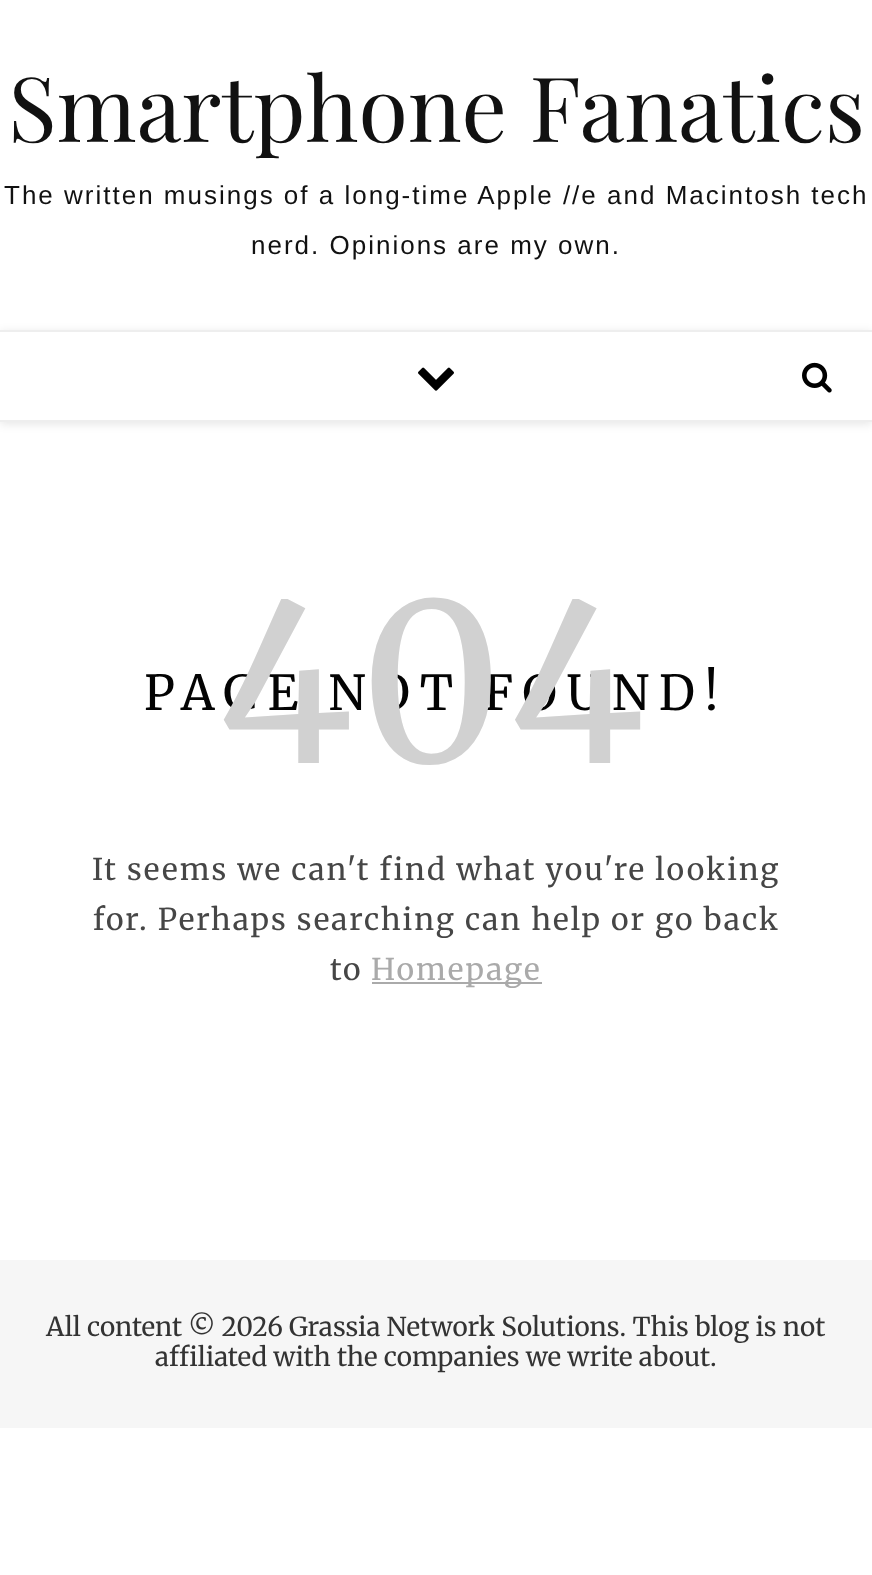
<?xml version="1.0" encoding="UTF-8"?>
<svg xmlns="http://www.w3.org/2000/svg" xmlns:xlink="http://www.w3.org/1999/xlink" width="872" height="1575">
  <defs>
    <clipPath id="clip1"><path d="M 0 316 h 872 v 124 h -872 z m 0 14 h 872 v 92 h -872 z" clip-rule="evenodd" /></clipPath>
  </defs>
  <rect width="100%" height="100%" fill="#ffffff" />
  <g clip-path="url(#clip1)">
    <rect y="332" width="872" height="92" fill="#000000" fill-opacity="0.1" filter="blur(5px)" />
  </g>
  <rect y="330" width="872" height="2" fill="#eeeeee" />
  <rect y="420" width="872" height="2" fill="#eeeeee" />
  <image x="418" y="367" width="36" height="24" xlink:href="image1.png" />
  <image x="802" y="362" width="30" height="31" xlink:href="image2.png" />
  <rect x="372" y="982" width="170" height="2" fill="#aaaaaa" />
  <rect y="1260" width="872" height="168" fill="#f6f6f6" />
  <text x="8" y="142" style="font-family: Playfair Display; font-size: 90px; fill: #111111">Smartphone Fanatics</text>
  <text x="4" y="204" style="font-family: Liberation Sans; font-size: 26px; letter-spacing: 2px; fill: #111111">The written musings of a long-time Apple //e and Macintosh tech</text>
  <text x="251" y="254" style="font-family: Liberation Sans; font-size: 26px; letter-spacing: 2px; fill: #111111">nerd. Opinions are my own.</text>
  <text x="144" y="710" style="font-family: Merriweather; font-size: 48px; letter-spacing: 9.6px; fill: #030303">PAGE NOT FOUND!</text>
  <text x="218" y="763" style="font-family: Merriweather; font-size: 220px; letter-spacing: 9.6px; fill: #d1d1d1">404</text>
  <text x="92" y="880" style="font-family: Merriweather; font-size: 30px; letter-spacing: 2px; fill: #464646">It seems we can't find what you're looking</text>
  <text x="93" y="930" style="font-family: Merriweather; font-size: 30px; letter-spacing: 2px; fill: #464646">for. Perhaps searching can help or go back</text>
  <text x="330" y="980" style="font-family: Merriweather; font-size: 30px; letter-spacing: 2px; fill: #464646">to</text>
  <text x="371" y="980" style="font-family: Merriweather; font-size: 30px; letter-spacing: 2px; fill: #aaaaaa">Homepage</text>
  <text x="46" y="1336" style="font-family: Merriweather; font-size: 26px; fill: #333333">All content © 2026 Grassia Network Solutions. This blog is not</text>
  <text x="155" y="1366" style="font-family: Merriweather; font-size: 26px; fill: #333333">affiliated with the companies we write about.</text>
</svg>
